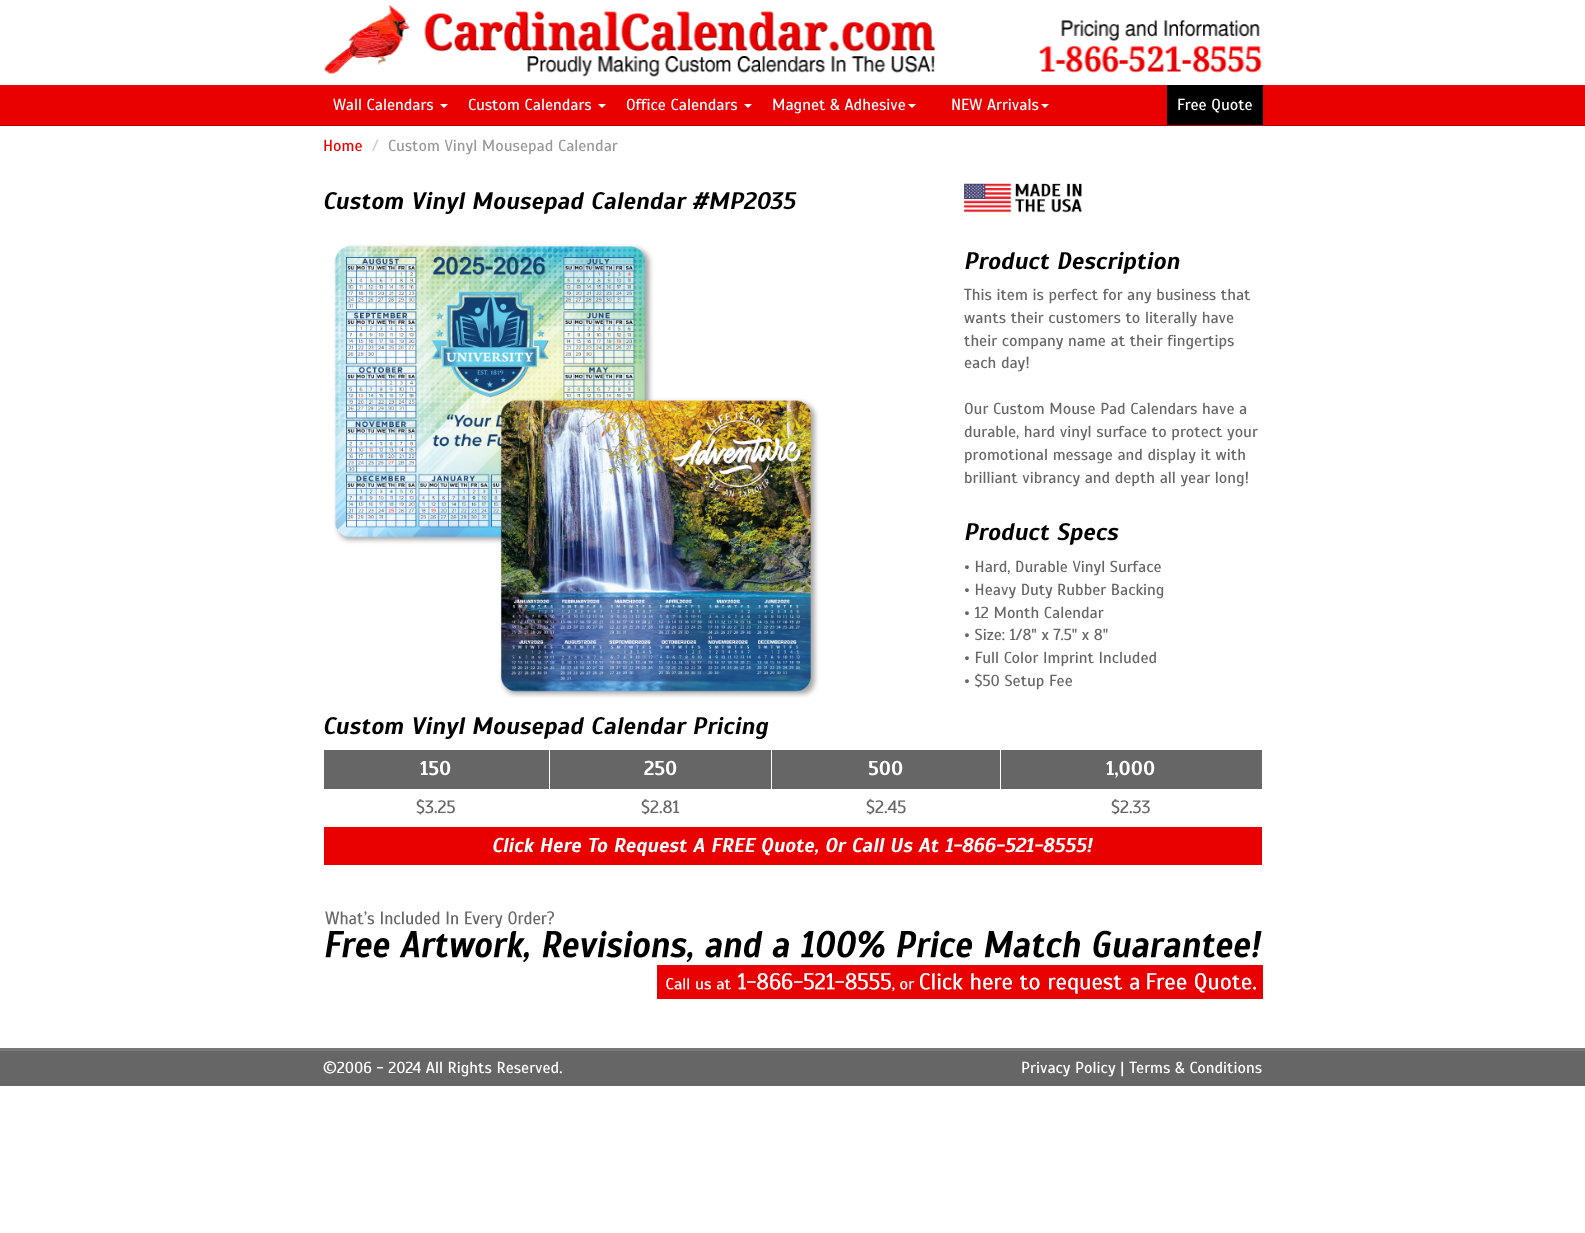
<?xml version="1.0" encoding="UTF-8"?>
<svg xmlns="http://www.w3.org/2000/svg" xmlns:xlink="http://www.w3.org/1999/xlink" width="1585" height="1233">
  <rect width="100%" height="100%" fill="#ffffff" />
  <rect y="85" width="1585" height="40" fill="#e90101" />
  <rect y="125" width="1585" height="1" fill="#b90000" />
  <image x="324" y="4" width="938" height="73" xlink:href="image1.png" />
  <path d="M 440 104 h 8 l -4 4 z" fill="#ffffff" />
  <path d="M 598 104 h 8 l -4 4 z" fill="#ffffff" />
  <path d="M 744 104 h 8 l -4 4 z" fill="#ffffff" />
  <path d="M 908 104 h 8 l -4 4 z" fill="#ffffff" />
  <path d="M 1041 104 h 8 l -4 4 z" fill="#ffffff" />
  <rect x="1167" y="85" width="96" height="40" fill="#000000" />
  <image x="333" y="244" width="486" height="454" xlink:href="image2.png" />
  <image x="964" y="183" width="118" height="30" xlink:href="image3.png" />
  <rect x="324" y="750" width="225" height="39" fill="#666666" />
  <rect x="550" y="750" width="221" height="39" fill="#666666" />
  <rect x="772" y="750" width="228" height="39" fill="#666666" />
  <rect x="1001" y="750" width="261" height="39" fill="#666666" />
  <rect x="324" y="827" width="938" height="38" fill="#e90101" />
  <image x="325" y="911" width="938" height="88" xlink:href="image4.png" />
  <rect y="1051" width="1585" height="35" fill="#666666" />
  <rect y="1048" width="1585" height="3" fill="#777777" />
  <text x="333" y="110" style="font-family: Scada; font-size: 16px; fill: #ffffff">Wall Calendars</text>
  <text x="468" y="110" style="font-family: Scada; font-size: 16px; fill: #ffffff">Custom Calendars</text>
  <text x="626" y="110" style="font-family: Scada; font-size: 16px; fill: #ffffff">Office Calendars</text>
  <text x="772" y="110" style="font-family: Scada; font-size: 16px; fill: #ffffff">Magnet &amp; Adhesive</text>
  <text x="951" y="110" style="font-family: Scada; font-size: 16px; fill: #ffffff">NEW Arrivals</text>
  <text x="1177" y="110" style="font-family: Scada; font-size: 16px; fill: #ffffff">Free Quote</text>
  <text x="323" y="151" style="font-family: Scada; font-size: 16px; fill: #e90101">Home</text>
  <text x="372" y="151" style="font-family: Scada; font-size: 16px; fill: #cccccc">/</text>
  <text x="388" y="151" style="font-family: Scada; font-size: 16px; fill: #999999">Custom Vinyl Mousepad Calendar</text>
  <text x="323" y="209" style="font-family: Scada; font-size: 24px; font-weight: bold; font-style: italic; fill: #000000">Custom Vinyl Mousepad Calendar #MP2035</text>
  <text x="964" y="269" style="font-family: Scada; font-size: 24px; font-weight: bold; font-style: italic; fill: #000000">Product Description</text>
  <text x="964" y="300" style="font-family: Scada; font-size: 16px; fill: #666666">This item is perfect for any business that</text>
  <text x="964" y="323" style="font-family: Scada; font-size: 16px; fill: #666666">wants their customers to literally have</text>
  <text x="964" y="346" style="font-family: Scada; font-size: 16px; fill: #666666">their company name at their fingertips</text>
  <text x="964" y="368" style="font-family: Scada; font-size: 16px; fill: #666666">each day!</text>
  <text x="964" y="414" style="font-family: Scada; font-size: 16px; fill: #666666">Our Custom Mouse Pad Calendars have a</text>
  <text x="964" y="437" style="font-family: Scada; font-size: 16px; fill: #666666">durable, hard vinyl surface to protect your</text>
  <text x="964" y="460" style="font-family: Scada; font-size: 16px; fill: #666666">promotional message and display it with</text>
  <text x="964" y="483" style="font-family: Scada; font-size: 16px; fill: #666666">brilliant vibrancy and depth all year long!</text>
  <text x="964" y="540" style="font-family: Scada; font-size: 24px; font-weight: bold; font-style: italic; fill: #000000">Product Specs</text>
  <text x="964" y="572" style="font-family: Scada; font-size: 16px; fill: #666666">• Hard, Durable Vinyl Surface</text>
  <text x="964" y="595" style="font-family: Scada; font-size: 16px; fill: #666666">• Heavy Duty Rubber Backing</text>
  <text x="964" y="618" style="font-family: Scada; font-size: 16px; fill: #666666">• 12 Month Calendar</text>
  <text x="964" y="640" style="font-family: Scada; font-size: 16px; fill: #666666">• Size: 1/8" x 7.5" x 8"</text>
  <text x="964" y="663" style="font-family: Scada; font-size: 16px; fill: #666666">• Full Color Imprint Included</text>
  <text x="964" y="686" style="font-family: Scada; font-size: 16px; fill: #666666">• $50 Setup Fee</text>
  <text x="323" y="734" style="font-family: Scada; font-size: 24px; font-weight: bold; font-style: italic; fill: #000000">Custom Vinyl Mousepad Calendar Pricing</text>
  <text x="420" y="775" style="font-family: Scada; font-size: 20px; font-weight: bold; fill: #ffffff">150</text>
  <text x="644" y="775" style="font-family: Scada; font-size: 20px; font-weight: bold; fill: #ffffff">250</text>
  <text x="868" y="775" style="font-family: Scada; font-size: 20px; font-weight: bold; fill: #ffffff">500</text>
  <text x="1106" y="775" style="font-family: Scada; font-size: 20px; font-weight: bold; fill: #ffffff">1,000</text>
  <text x="416" y="813" style="font-family: Scada; font-size: 18px; fill: #666666">$3.25</text>
  <text x="641" y="813" style="font-family: Scada; font-size: 18px; fill: #666666">$2.81</text>
  <text x="866" y="813" style="font-family: Scada; font-size: 18px; fill: #666666">$2.45</text>
  <text x="1111" y="813" style="font-family: Scada; font-size: 18px; fill: #666666">$2.33</text>
  <text x="492" y="852" style="font-family: Scada; font-size: 20px; font-weight: bold; font-style: italic; fill: #ffffff">Click Here To Request A FREE Quote, Or Call Us At 1-866-521-8555!</text>
  <text x="323" y="1073" style="font-family: Scada; font-size: 16px; fill: #ffffff">©2006 - 2024 All Rights Reserved.</text>
  <text x="1021" y="1073" style="font-family: Scada; font-size: 16px; fill: #ffffff">Privacy Policy | Terms &amp; Conditions</text>
</svg>
